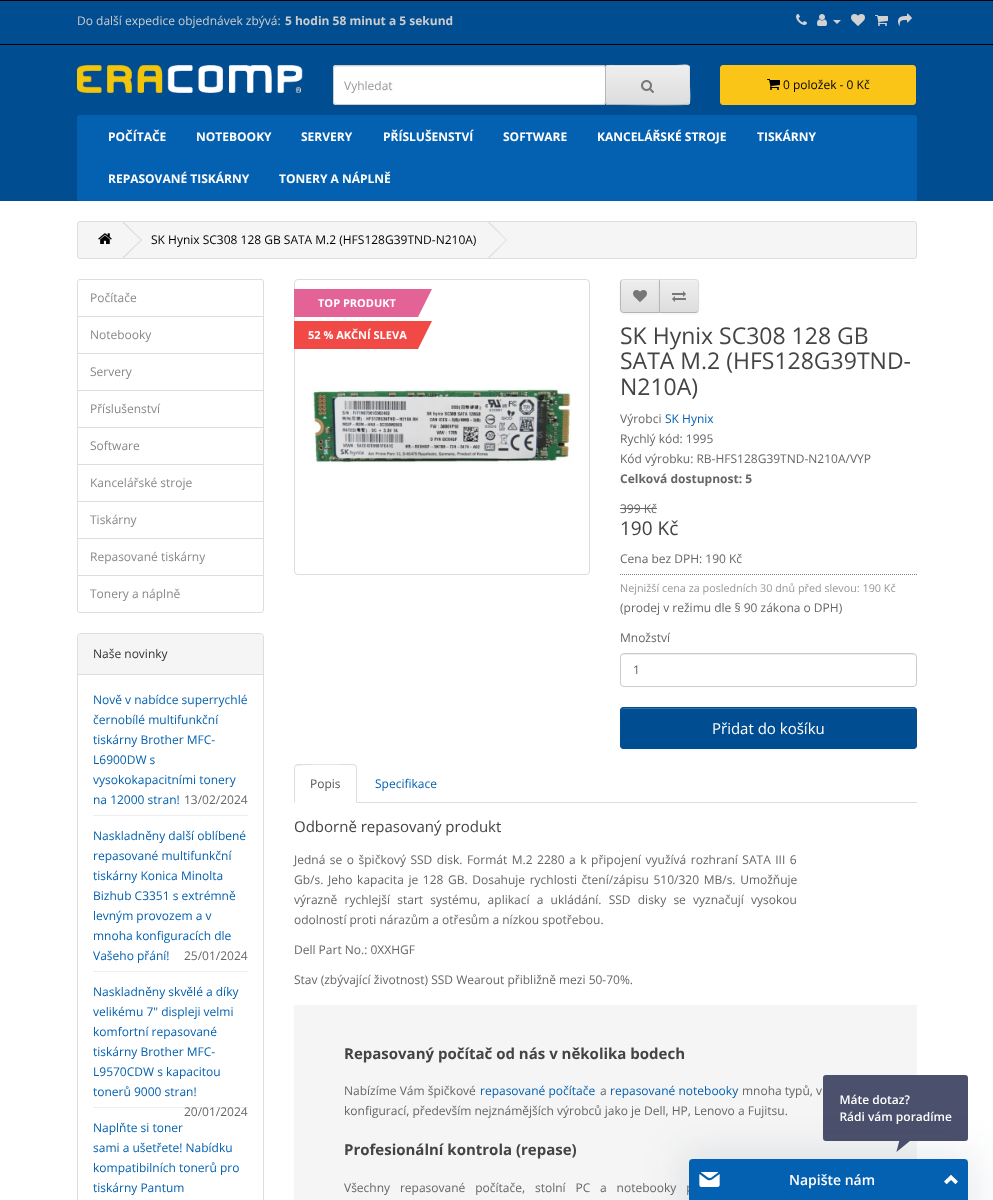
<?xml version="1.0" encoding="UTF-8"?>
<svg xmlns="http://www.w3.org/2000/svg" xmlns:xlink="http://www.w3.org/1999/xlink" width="993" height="1200">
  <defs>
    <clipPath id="clip1"><rect x="605" y="65" width="85" height="40" rx="3" /></clipPath>
    <linearGradient id="g1" gradientUnits="userSpaceOnUse" x1="648" y1="66" x2="648" y2="104"><stop offset="0" stop-color="#eeeeee" /><stop offset="1" stop-color="#dddddd" /></linearGradient>
    <clipPath id="clip2"><path d="M 624 279 h 36 v 34 h -36 c -2 0 -4 -2 -4 -4 v -26 c 0 -2 2 -4 4 -4 z" /></clipPath>
    <linearGradient id="g2" gradientUnits="userSpaceOnUse" x1="640" y1="280" x2="640" y2="312"><stop offset="0" stop-color="#eeeeee" /><stop offset="1" stop-color="#dddddd" /></linearGradient>
    <clipPath id="clip3"><path d="M 659 279 h 36 c 2 0 4 2 4 4 v 26 c 0 2 -2 4 -4 4 h -36 z" /></clipPath>
    <linearGradient id="g3" gradientUnits="userSpaceOnUse" x1="679" y1="280" x2="679" y2="312"><stop offset="0" stop-color="#eeeeee" /><stop offset="1" stop-color="#dddddd" /></linearGradient>
  </defs>
  <rect width="100%" height="100%" fill="#ffffff" />
  <rect y="1" width="993" height="200" fill="#004e91" />
  <rect width="993" height="1" fill="#000000" />
  <rect y="44" width="993" height="1" fill="#000000" />
  <image x="796" y="14" width="11" height="11" xlink:href="image1.png" />
  <image x="817" y="14" width="10" height="12" xlink:href="image2.png" />
  <path d="M 833 20 h 8 l -4 4 z" fill="#d2d2d2" />
  <image x="851" y="14" width="14" height="12" xlink:href="image3.png" />
  <image x="875" y="15" width="13" height="11" xlink:href="image4.png" />
  <image x="898" y="13" width="14" height="13" xlink:href="image5.png" />
  <image x="77" y="65" width="226" height="28" xlink:href="image6.png" />
  <rect x="333" y="65" width="273" height="40" rx="3" fill="#ffffff" />
  <path d="M 336 67 h 267 c 1 0 2 1 2 2 c 0 -1 0 -3 -2 -3 h -267 l -2 1 v 2 c 0 -1 1 -2 2 -2 z" fill="#ececec" />
  <rect x="333.5" y="65.5" width="272" height="39" rx="2.5" fill="none" stroke="#cccccc" />
  <rect x="605" y="65" width="85" height="40" rx="3" fill="#e7e7e7" />
  <g clip-path="url(#clip1)">
    <rect x="605" y="66" width="85" height="38" fill="url(#g1)" />
  </g>
  <path d="M 608 67 h 79 c 1 0 2 1 2 2 c 0 -7 -12 -3 -15 -3 h -53 c -3 0 -15 -4 -15 3 c 0 -1 1 -2 2 -2 z" fill="#ffffff" fill-opacity="0.2" />
  <path d="M 606 66 l 2 -0.5 h 66 c 14.5 0 15.5 -3.5 15.5 8 v 11.5 c 0 3 1 17 -0.5 19" fill="none" stroke="#dddddd" />
  <path d="M 689 104 h -0.5 c -2 1.5 -60 0.5 -67.5 0.5 h -13 l -2 -0.5" fill="none" stroke="#b3b3b3" />
  <path d="M 606 104 l -0.5 -2 v -34 l 0.5 -2" fill="none" stroke="#b7b7b7" />
  <image x="641" y="80" width="13" height="13" xlink:href="image7.png" />
  <rect x="720.5" y="65.5" width="195" height="39" rx="2.5" fill="#fbc518" stroke="#fbc518" />
  <image x="767" y="79" width="13" height="11" xlink:href="image8.png" />
  <rect x="77" y="115" width="840" height="86" rx="3" fill="#0460b0" />
  <rect x="77.5" y="221.5" width="839" height="37" rx="2.5" fill="#f5f5f5" stroke="#dddddd" />
  <image x="98" y="233" width="14" height="11" xlink:href="image9.png" />
  <path d="M 122.5 222.5 l 1 -1 l 18.5 18.5 l -1 0.5 z" fill="#dddddd" />
  <path d="M 122.5 257.5 l 18.5 -18 l 1 0.5 l -18.5 18.5 z" fill="#dddddd" />
  <path d="M 488 222.5 l 1 -1 l 18 18.5 l -0.5 0.5 z" fill="#dddddd" />
  <path d="M 488 257.5 l 18.5 -18 l 0.5 0.5 l -18 18.5 z" fill="#dddddd" />
  <path d="M 80 279.5 h 181 c 1.5 0 2.5 1 2.5 2.5 v 34.5 h -186 v -34.5 c 0 -1.5 1 -2.5 2.5 -2.5 z" fill="none" stroke="#dddddd" />
  <rect x="77.5" y="316.5" width="186" height="37" fill="none" stroke="#dddddd" />
  <rect x="77.5" y="353.5" width="186" height="37" fill="none" stroke="#dddddd" />
  <rect x="77.5" y="390.5" width="186" height="37" fill="none" stroke="#dddddd" />
  <rect x="77.5" y="427.5" width="186" height="37" fill="none" stroke="#dddddd" />
  <rect x="77.5" y="464.5" width="186" height="37" fill="none" stroke="#dddddd" />
  <rect x="77.5" y="501.5" width="186" height="37" fill="none" stroke="#dddddd" />
  <rect x="77.5" y="538.5" width="186" height="37" fill="none" stroke="#dddddd" />
  <path d="M 77.5 575.5 h 186 v 34.5 c 0 1.5 -1 2.5 -2.5 2.5 h -181 c -1.5 0 -2.5 -1 -2.5 -2.5 z" fill="#ffffff" stroke="#dddddd" />
  <rect x="77.5" y="633.5" width="186" height="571" rx="3.5" fill="none" stroke="#dddddd" />
  <path d="M 81 634 h 179 c 1.5 0 3 1.5 3 3 v 38 h -185 v -38 c 0 -1.5 1.5 -3 3 -3 z" fill="#f5f5f5" />
  <rect x="78" y="674" width="185" height="1" fill="#dddddd" />
  <rect x="93" y="815" width="155" height="1" fill="#eeeeee" />
  <rect x="93" y="971" width="155" height="1" fill="#eeeeee" />
  <rect x="93" y="1107" width="155" height="1" fill="#eeeeee" />
  <rect x="294.5" y="279.5" width="295" height="295" rx="3.5" fill="none" stroke="#dddddd" />
  <image x="312" y="388" width="260" height="77" xlink:href="image10.png" />
  <path d="M 294 289 h 138 l -14 28 h -124 z" fill="#e36397" />
  <path d="M 294 321 h 138 l -14 28 h -124 z" fill="#f14a46" />
  <rect x="620" y="280" width="40" height="34" rx="4" fill="#000000" fill-opacity="0.05" filter="blur(1px)" />
  <g clip-path="url(#clip2)">
    <rect x="620" y="280" width="39" height="32" fill="url(#g2)" />
  </g>
  <path d="M 624 281 h 35 v -1 h -35 c -1.5 0 -3 1.5 -3 3 v 1 c 0 -2 1 -3 3 -3 z" fill="#f1f1f1" />
  <path d="M 624 279 c -1 0 -2 0.5 -3 1 l 1 1 c 0 -1 1 -1 2 -1 h 35 l 1 -1 z" fill="#dddddd" />
  <path d="M 660 313 l -1 -1 h -35 c -1 0 -2 0 -2 -1 l -1 1 c 1 0.5 2 1 3 1 z" fill="#b3b3b3" />
  <path d="M 620 283 v 26 c 0 1 0.5 2 1 3 l 1 -1 c -1 0 -1 -1 -1 -2 v -26 c 0 -1 0 -2 1 -2 l -1 -1 c -0.5 1 -1 2 -1 3 z" fill="#b7b7b7" />
  <image x="633" y="290" width="14" height="12" xlink:href="image11.png" />
  <rect x="659" y="280" width="40" height="34" rx="4" fill="#000000" fill-opacity="0.05" filter="blur(1px)" />
  <g clip-path="url(#clip3)">
    <rect x="660" y="280" width="39" height="32" fill="url(#g3)" />
  </g>
  <path d="M 660 281 h 35 c 2 0 3 1 3 3 v -1 c 0 -1.5 -1.5 -3 -3 -3 h -35 z" fill="#f1f1f1" />
  <path d="M 659 279 l 1 1 h 35 c 1 0 2 0 2 1 l 1 -1 c -1 -0.5 -2 -1 -3 -1 z" fill="#dddddd" />
  <path d="M 699 309 v -26 c 0 -1 -0.5 -2 -1 -3 l -1 1 c 1 0 1 1 1 2 v 26 c 0 1 0 2 -1 2 l 1 1 c 0.5 -1 1 -2 1 -3 z" fill="#dddddd" />
  <path d="M 695 313 c 1 0 2 -0.5 3 -1 l -1 -1 c 0 1 -1 1 -2 1 h -35 l -1 1 z" fill="#b3b3b3" />
  <path d="M 659 279 v 34 l 1 -1 v -32 z" fill="#b7b7b7" />
  <image x="672" y="291" width="14" height="11" xlink:href="image12.png" />
  <rect x="620" y="508" width="37" height="1" fill="#666666" />
  <path d="M 620 574.5 h 297" fill="none" stroke="#808080" stroke-dasharray="1 1" />
  <path d="M 624 655 h 289 c 2 0 3 1 3 3 l -1 -3 l -1 -1 h -290 c -2 0 -3 2 -3 4 c 0 -2 1 -3 3 -3 z" fill="#ececec" />
  <rect x="620.5" y="653.5" width="296" height="33" rx="3.5" fill="none" stroke="#cccccc" />
  <rect x="620" y="708" width="297" height="42" rx="4" fill="#000000" fill-opacity="0.05" filter="blur(1px)" />
  <rect x="620" y="707" width="297" height="42" rx="4" fill="#004e91" />
  <path d="M 624 709 h 289 c 2 0 3 1 3 3 l -1 -3 l -1 -1 h -290 c -2 0 -3 2 -3 4 c 0 -2 1 -3 3 -3 z" fill="#3371a7" />
  <rect x="620.5" y="707.5" width="296" height="41" rx="3.5" fill="none" stroke="#004e91" />
  <rect x="357" y="802" width="560" height="1" fill="#dddddd" />
  <path d="M 298 764 l -3 1 l 1 1 c 2 -2 52 -1 57 -1 l 2 1 l 1 -1 l -3 -1 z" fill="#dddddd" />
  <path d="M 357 803 v -35 c 0 -1 -0.5 -2 -1 -3 l -1 1 c 1 0 1 1 1 2 v 34 z m -63 0 l 1 -1 v -34 c 0 -1 0 -2 1 -2 l -1 -1 c -0.5 1 -1 2 -1 3 z" fill="#dddddd" />
  <rect x="294" y="1005" width="623" height="195" fill="#f5f5f5" />
  <text x="77" y="25" style="font-family: Open Sans; font-size: 12px; fill: #cccccc">Do další expedice objednávek zbývá:</text>
  <text x="285" y="25" style="font-family: Open Sans; font-size: 12px; font-weight: bold; fill: #cccccc">5 hodin 58 minut a 5 sekund</text>
  <text x="344" y="90" style="font-family: Open Sans; font-size: 12px; fill: #979899">Vyhledat</text>
  <text x="783" y="89" style="font-family: Open Sans; font-size: 12px; fill: #000000">0 položek - 0 Kč</text>
  <text x="108" y="141" style="font-family: Open Sans; font-size: 12px; font-weight: bold; fill: #ffffff">POČÍTAČE</text>
  <text x="196" y="141" style="font-family: Open Sans; font-size: 12px; font-weight: bold; fill: #ffffff">NOTEBOOKY</text>
  <text x="301" y="141" style="font-family: Open Sans; font-size: 12px; font-weight: bold; fill: #ffffff">SERVERY</text>
  <text x="383" y="141" style="font-family: Open Sans; font-size: 12px; font-weight: bold; fill: #ffffff">PŘÍSLUŠENSTVÍ</text>
  <text x="503" y="141" style="font-family: Open Sans; font-size: 12px; font-weight: bold; fill: #ffffff">SOFTWARE</text>
  <text x="597" y="141" style="font-family: Open Sans; font-size: 12px; font-weight: bold; fill: #ffffff">KANCELÁŘSKÉ STROJE</text>
  <text x="757" y="141" style="font-family: Open Sans; font-size: 12px; font-weight: bold; fill: #ffffff">TISKÁRNY</text>
  <text x="108" y="183" style="font-family: Open Sans; font-size: 12px; font-weight: bold; fill: #ffffff">REPASOVANÉ TISKÁRNY</text>
  <text x="279" y="183" style="font-family: Open Sans; font-size: 12px; font-weight: bold; fill: #ffffff">TONERY A NÁPLNĚ</text>
  <text x="151" y="244" style="font-family: Open Sans; font-size: 12px; fill: #000000">SK Hynix SC308 128 GB SATA M.2 (HFS128G39TND-N210A)</text>
  <text x="90" y="302" style="font-family: Open Sans; font-size: 12px; fill: #888888">Počítače</text>
  <text x="90" y="339" style="font-family: Open Sans; font-size: 12px; fill: #888888">Notebooky</text>
  <text x="90" y="376" style="font-family: Open Sans; font-size: 12px; fill: #888888">Servery</text>
  <text x="90" y="413" style="font-family: Open Sans; font-size: 12px; fill: #888888">Příslušenství</text>
  <text x="90" y="450" style="font-family: Open Sans; font-size: 12px; fill: #888888">Software</text>
  <text x="90" y="487" style="font-family: Open Sans; font-size: 12px; fill: #888888">Kancelářské stroje</text>
  <text x="90" y="524" style="font-family: Open Sans; font-size: 12px; fill: #888888">Tiskárny</text>
  <text x="90" y="561" style="font-family: Open Sans; font-size: 12px; fill: #888888">Repasované tiskárny</text>
  <text x="90" y="598" style="font-family: Open Sans; font-size: 12px; fill: #888888">Tonery a náplně</text>
  <text x="93" y="658" style="font-family: Open Sans; font-size: 12px; fill: #333333">Naše novinky</text>
  <text x="93" y="704" style="font-family: Open Sans; font-size: 12px; fill: #0460b0">Nově v nabídce superrychlé</text>
  <text x="93" y="724" style="font-family: Open Sans; font-size: 12px; fill: #0460b0">černobílé multifunkční</text>
  <text x="93" y="744" style="font-family: Open Sans; font-size: 12px; fill: #0460b0">tiskárny Brother MFC-</text>
  <text x="93" y="764" style="font-family: Open Sans; font-size: 12px; fill: #0460b0">L6900DW s</text>
  <text x="93" y="784" style="font-family: Open Sans; font-size: 12px; fill: #0460b0">vysokokapacitními tonery</text>
  <text x="93" y="804" style="font-family: Open Sans; font-size: 12px; fill: #0460b0">na 12000 stran!</text>
  <text x="184" y="804" style="font-family: Open Sans; font-size: 12px; fill: #666666">13/02/2024</text>
  <text x="93" y="840" style="font-family: Open Sans; font-size: 12px; fill: #0460b0">Naskladněny další oblíbené</text>
  <text x="93" y="860" style="font-family: Open Sans; font-size: 12px; fill: #0460b0">repasované multifunkční</text>
  <text x="93" y="880" style="font-family: Open Sans; font-size: 12px; fill: #0460b0">tiskárny Konica Minolta</text>
  <text x="93" y="900" style="font-family: Open Sans; font-size: 12px; fill: #0460b0">Bizhub C3351 s extrémně</text>
  <text x="93" y="920" style="font-family: Open Sans; font-size: 12px; fill: #0460b0">levným provozem a v</text>
  <text x="93" y="940" style="font-family: Open Sans; font-size: 12px; fill: #0460b0">mnoha konfiguracích dle</text>
  <text x="93" y="960" style="font-family: Open Sans; font-size: 12px; fill: #0460b0">Vašeho přání!</text>
  <text x="184" y="960" style="font-family: Open Sans; font-size: 12px; fill: #666666">25/01/2024</text>
  <text x="93" y="996" style="font-family: Open Sans; font-size: 12px; fill: #0460b0">Naskladněny skvělé a díky</text>
  <text x="93" y="1016" style="font-family: Open Sans; font-size: 12px; fill: #0460b0">velikému 7" displeji velmi</text>
  <text x="93" y="1036" style="font-family: Open Sans; font-size: 12px; fill: #0460b0">komfortní repasované</text>
  <text x="93" y="1056" style="font-family: Open Sans; font-size: 12px; fill: #0460b0">tiskárny Brother MFC-</text>
  <text x="93" y="1076" style="font-family: Open Sans; font-size: 12px; fill: #0460b0">L9570CDW s kapacitou</text>
  <text x="93" y="1096" style="font-family: Open Sans; font-size: 12px; fill: #0460b0">tonerů 9000 stran!</text>
  <text x="184" y="1116" style="font-family: Open Sans; font-size: 12px; fill: #666666">20/01/2024</text>
  <text x="93" y="1132" style="font-family: Open Sans; font-size: 12px; fill: #0460b0">Naplňte si toner</text>
  <text x="93" y="1152" style="font-family: Open Sans; font-size: 12px; fill: #0460b0">sami a ušetřete! Nabídku</text>
  <text x="93" y="1172" style="font-family: Open Sans; font-size: 12px; fill: #0460b0">kompatibilních tonerů pro</text>
  <text x="93" y="1192" style="font-family: Open Sans; font-size: 12px; fill: #0460b0">tiskárny Pantum</text>
  <text x="318" y="307" style="font-family: Open Sans; font-size: 11px; font-weight: bold; fill: #ffffff">TOP PRODUKT</text>
  <text x="308" y="339" style="font-family: Open Sans; font-size: 11px; font-weight: bold; fill: #ffffff">52 % AKČNÍ SLEVA</text>
  <text x="620" y="344" style="font-family: Open Sans; font-size: 23px; fill: #444444">SK Hynix SC308 128 GB</text>
  <text x="620" y="369" style="font-family: Open Sans; font-size: 23px; fill: #444444">SATA M.2 (HFS128G39TND-</text>
  <text x="620" y="395" style="font-family: Open Sans; font-size: 23px; fill: #444444">N210A)</text>
  <text x="620" y="423" style="font-family: Open Sans; font-size: 12px; fill: #666666">Výrobci</text>
  <text x="665" y="423" style="font-family: Open Sans; font-size: 12px; fill: #0460b0">SK Hynix</text>
  <text x="620" y="443" style="font-family: Open Sans; font-size: 12px; fill: #666666">Rychlý kód: 1995</text>
  <text x="620" y="463" style="font-family: Open Sans; font-size: 12px; fill: #666666">Kód výrobku: RB-HFS128G39TND-N210A/VYP</text>
  <text x="620" y="483" style="font-family: Open Sans; font-size: 12px; font-weight: bold; fill: #666666">Celková dostupnost: 5</text>
  <text x="620" y="513" style="font-family: Open Sans; font-size: 12px; fill: #666666">399 Kč</text>
  <text x="620" y="535" style="font-family: Open Sans; font-size: 19px; fill: #444444">190 Kč</text>
  <text x="620" y="563" style="font-family: Open Sans; font-size: 12px; fill: #666666">Cena bez DPH: 190 Kč</text>
  <text x="620" y="592" style="font-family: Open Sans; font-size: 10.8px; fill: #979899">Nejnižší cena za posledních 30 dnů před slevou: 190 Kč</text>
  <text x="620" y="612" style="font-family: Open Sans; font-size: 12px; fill: #666666">(prodej v režimu dle § 90 zákona o DPH)</text>
  <text x="620" y="642" style="font-family: Open Sans; font-size: 12px; fill: #666666">Množství</text>
  <text x="633" y="674" style="font-family: Open Sans; font-size: 12px; fill: #5c5c5c">1</text>
  <text x="712" y="734" style="font-family: Open Sans; font-size: 15px; fill: #ffffff">Přidat do košíku</text>
  <text x="310" y="788" style="font-family: Open Sans; font-size: 12px; fill: #555555">Popis</text>
  <text x="375" y="788" style="font-family: Open Sans; font-size: 12px; fill: #0460b0">Specifikace</text>
  <text x="294" y="832" style="font-family: Open Sans; font-size: 15px; fill: #444444">Odborně repasovaný produkt</text>
  <text x="294" y="864" word-spacing="1.4" style="font-family: Open Sans; font-size: 12px; fill: #666666">Jedná se o špičkový SSD disk. Formát M.2 2280 a k připojení využívá rozhraní SATA III 6</text>
  <text x="294" y="884" word-spacing="1.5" style="font-family: Open Sans; font-size: 12px; fill: #666666">Gb/s. Jeho kapacita je 128 GB. Dosahuje rychlosti čtení/zápisu 510/320 MB/s. Umožňuje</text>
  <text x="294" y="904" word-spacing="4.1" style="font-family: Open Sans; font-size: 12px; fill: #666666">výrazně rychlejší start systému, aplikací a ukládání. SSD disky se vyznačují vysokou</text>
  <text x="294" y="924" style="font-family: Open Sans; font-size: 12px; fill: #666666">odolností proti nárazům a otřesům a nízkou spotřebou.</text>
  <text x="294" y="954" style="font-family: Open Sans; font-size: 12px; fill: #666666">Dell Part No.: 0XXHGF</text>
  <text x="294" y="984" style="font-family: Open Sans; font-size: 12px; fill: #666666">Stav (zbývající životnost) SSD Wearout přibližně mezi 50-70%.</text>
  <text x="344" y="1059" style="font-family: Open Sans; font-size: 15px; font-weight: bold; fill: #444444">Repasovaný počítač od nás v několika bodech</text>
  <text x="344" y="1095" style="font-family: Open Sans; font-size: 12px; fill: #666666">Nabízíme Vám špičkové</text>
  <text x="480" y="1095" style="font-family: Open Sans; font-size: 12px; fill: #0460b0">repasované počítače</text>
  <text x="600" y="1095" style="font-family: Open Sans; font-size: 12px; fill: #666666">a</text>
  <text x="610" y="1095" style="font-family: Open Sans; font-size: 12px; fill: #0460b0">repasované notebooky</text>
  <text x="742" y="1095" style="font-family: Open Sans; font-size: 12px; fill: #666666">mnoha typů, v</text>
  <text x="344" y="1115" style="font-family: Open Sans; font-size: 12px; fill: #666666">konfigurací, především nejznámějších výrobců jako je Dell, HP, Lenovo a Fujitsu.</text>
  <text x="344" y="1155" style="font-family: Open Sans; font-size: 15px; font-weight: bold; fill: #444444">Profesionální kontrola (repase)</text>
  <text x="344" y="1192" word-spacing="6.75" style="font-family: Open Sans; font-size: 12px; fill: #666666">Všechny repasované počítače, stolní PC a notebooky p</text>
  <image x="823" y="1075" width="145" height="77" xlink:href="image13.png" />
  <rect x="682" y="1152" width="293" height="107" fill="#1d2e4c" fill-opacity="0.1" filter="blur(19.5px)" />
  <image x="689" y="1159" width="279" height="41" xlink:href="image14.png" />
</svg>
